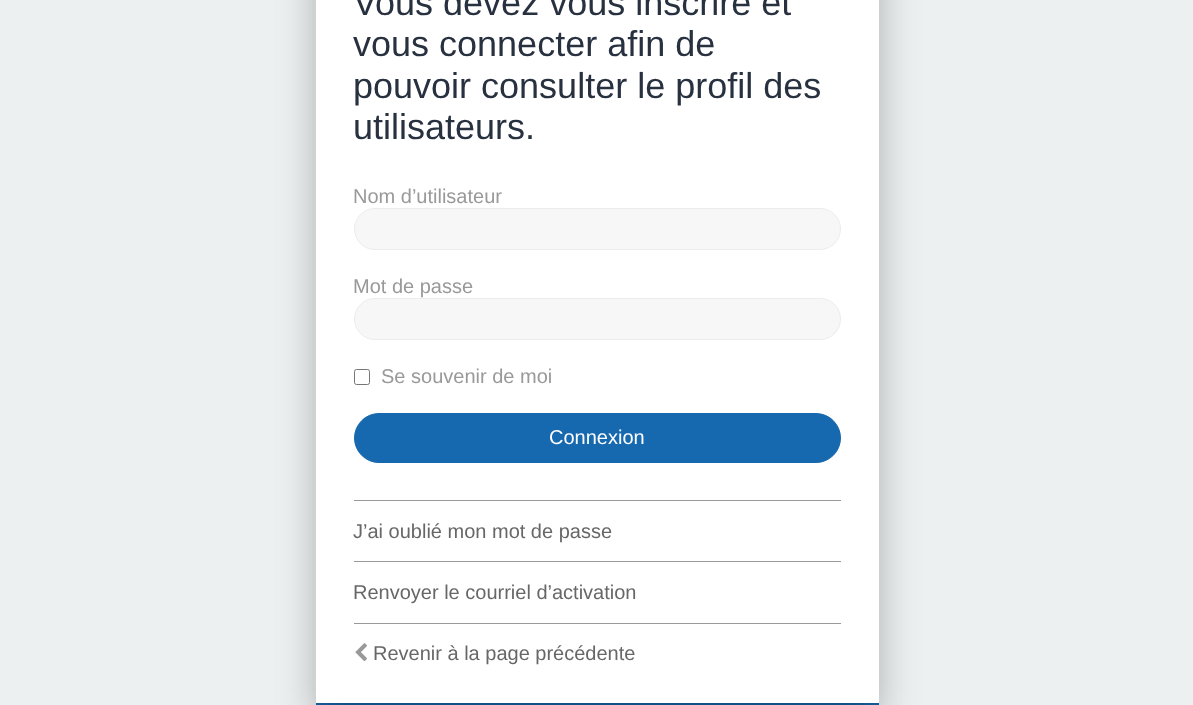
<?xml version="1.0" encoding="UTF-8"?>
<svg xmlns="http://www.w3.org/2000/svg" xmlns:xlink="http://www.w3.org/1999/xlink" width="1193" height="705">
  <rect width="100%" height="100%" fill="#ecf0f1" />
  <rect x="316" y="703" width="563" height="2" fill="#1668af" />
  <rect x="316" y="-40" width="563" height="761" fill="#000000" fill-opacity="0.27" filter="blur(19px)" />
  <rect x="316" width="563" height="703" fill="#ffffff" />
  <rect x="354.5" y="208.5" width="486" height="41" rx="20.5" fill="#f7f7f7" stroke="#edecec" />
  <rect x="354.5" y="298.5" width="486" height="41" rx="20.5" fill="#f7f7f7" stroke="#edecec" />
  <rect x="354.5" y="369.5" width="15" height="15" rx="2" fill="none" stroke="#767676" />
  <rect x="354.5" y="413.5" width="486" height="49" rx="24.5" fill="#1668af" stroke="#1668af" />
  <rect x="354" y="500" width="487" height="1" fill="#999999" />
  <rect x="354" y="561" width="487" height="1" fill="#999999" />
  <rect x="354" y="623" width="487" height="1" fill="#999999" />
  <image x="355" y="643" width="12" height="18" xlink:href="image1.png" />
  <text x="353" y="15" style="font-family: Liberation Sans; font-size: 36px; fill: #28313f">Vous devez vous inscrire et</text>
  <text x="353" y="56" style="font-family: Liberation Sans; font-size: 36px; fill: #28313f">vous connecter afin de</text>
  <text x="353" y="98" style="font-family: Liberation Sans; font-size: 36px; fill: #28313f">pouvoir consulter le profil des</text>
  <text x="353" y="139" style="font-family: Liberation Sans; font-size: 36px; fill: #28313f">utilisateurs.</text>
  <text x="353" y="203" style="font-family: Liberation Sans; font-size: 20px; fill: #999999">Nom d’utilisateur</text>
  <text x="353" y="293" style="font-family: Liberation Sans; font-size: 20px; fill: #999999">Mot de passe</text>
  <text x="381" y="383" style="font-family: Liberation Sans; font-size: 20px; fill: #999999">Se souvenir de moi</text>
  <text x="549" y="444" style="font-family: Liberation Sans; font-size: 20px; fill: #ffffff">Connexion</text>
  <text x="353" y="538" style="font-family: Liberation Sans; font-size: 20px; fill: #676767">J’ai oublié mon mot de passe</text>
  <text x="353" y="599" style="font-family: Liberation Sans; font-size: 20px; fill: #676767">Renvoyer le courriel d’activation</text>
  <text x="373" y="660" style="font-family: Liberation Sans; font-size: 20px; fill: #676767">Revenir à la page précédente</text>
</svg>
